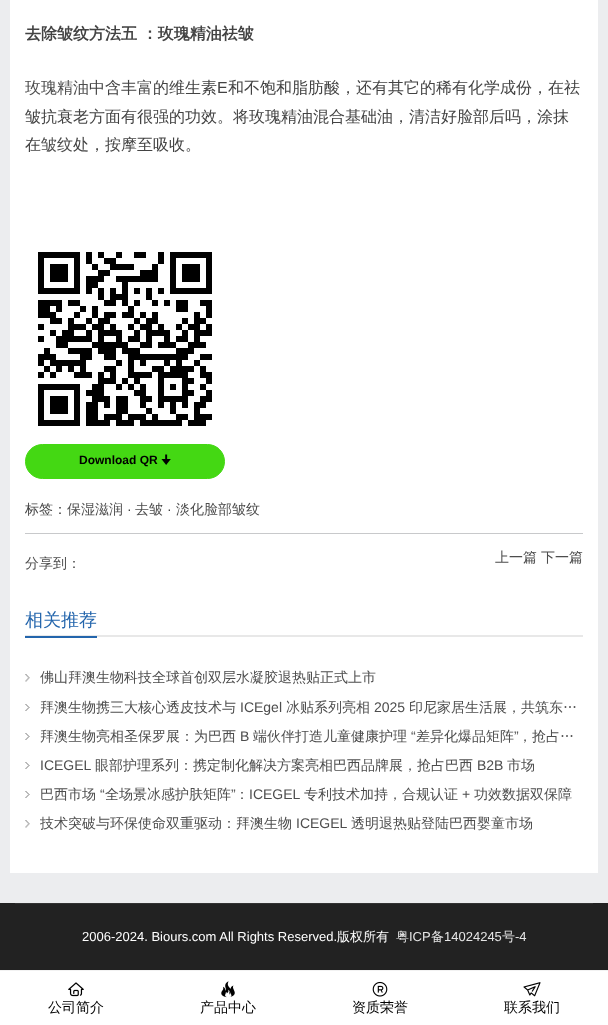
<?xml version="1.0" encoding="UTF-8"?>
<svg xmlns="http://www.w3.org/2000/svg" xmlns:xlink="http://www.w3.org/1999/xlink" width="608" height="1025">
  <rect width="100%" height="100%" fill="#ffffff" />
  <rect width="608" height="903" fill="#ecedef" />
  <rect x="10" width="588" height="873" fill="#ffffff" />
  <image x="38" y="252" width="174" height="174" xlink:href="image1.png" />
  <rect x="25.5" y="444.5" width="199" height="34" rx="17" fill="#44d813" stroke="#44d813" />
  <rect x="25" y="533" width="558" height="1" fill="#c8c9cb" />
  <rect x="25" y="635" width="558" height="2" fill="#e8e8e8" />
  <rect x="25" y="636" width="72" height="2" fill="#2365ac" />
  <image x="25" y="674" width="5" height="8" xlink:href="image2.png" />
  <image x="25" y="704" width="5" height="7" xlink:href="image3.png" />
  <image x="25" y="733" width="5" height="7" xlink:href="image3.png" />
  <image x="25" y="762" width="5" height="7" xlink:href="image3.png" />
  <image x="25" y="791" width="5" height="7" xlink:href="image3.png" />
  <image x="25" y="820" width="5" height="8" xlink:href="image2.png" />
  <rect y="903" width="608" height="67" fill="#222222" />
  <rect x="15" y="903" width="578" height="1" fill="#333333" />
  <rect y="970" width="608" height="1" fill="#f2f2f2" />
  <image x="68" y="982" width="16" height="15" xlink:href="image4.png" />
  <image x="221" y="981" width="14" height="17" xlink:href="image5.png" />
  <image x="372" y="981" width="16" height="16" xlink:href="image6.png" />
  <image x="523" y="982" width="18" height="15" xlink:href="image7.png" />
  <text x="25" y="39" style="font-family: WenQuanYi Zen Hei; font-size: 16px; font-weight: bold; fill: #434343">去除皱纹方法五 ：玫瑰精油祛皱</text>
  <text x="25" y="93" style="font-family: WenQuanYi Zen Hei; font-size: 16px; font-weight: 500; fill: #4d4d4d">玫瑰精油</text>
  <text x="89" y="93" style="font-family: WenQuanYi Zen Hei; font-size: 16px; font-weight: 500; fill: #434343">中含丰富的维生素</text>
  <text x="217" y="93" style="font-family: Liberation Sans; font-size: 16px; fill: #434343">E</text>
  <text x="228" y="93" style="font-family: WenQuanYi Zen Hei; font-size: 16px; font-weight: 500; fill: #434343">和不饱和脂肪酸，还有其它的稀有化学成份，在祛</text>
  <text x="25" y="122" style="font-family: WenQuanYi Zen Hei; font-size: 16px; font-weight: 500; fill: #434343">皱抗衰老方面有很强的功效。将玫瑰精油混合基础油，清洁好脸部后吗，涂抹</text>
  <text x="25" y="150" style="font-family: WenQuanYi Zen Hei; font-size: 16px; font-weight: 500; fill: #434343">在</text>
  <text x="41" y="150" style="font-family: WenQuanYi Zen Hei; font-size: 16px; font-weight: 500; fill: #4d4d4d">皱纹</text>
  <text x="73" y="150" style="font-family: WenQuanYi Zen Hei; font-size: 16px; font-weight: 500; fill: #434343">处，按摩至吸收。</text>
  <text x="79" y="464" style="font-family: Liberation Sans; font-size: 12px; font-weight: bold; fill: #000000">Download QR</text>
  <text x="161" y="464" style="font-family: 'Noto Sans Symbols 2'; font-size: 12px; font-weight: bold; fill: #000000">🠋</text>
  <text x="25" y="514" style="font-family: WenQuanYi Zen Hei; font-size: 14px; font-weight: 500; fill: #434343">标签：</text>
  <text x="67" y="514" style="font-family: WenQuanYi Zen Hei; font-size: 14px; font-weight: 500; fill: #4d4d4d">保湿滋润</text>
  <text x="127" y="514" style="font-family: Liberation Sans; font-size: 14px; fill: #434343">·</text>
  <text x="135" y="514" style="font-family: WenQuanYi Zen Hei; font-size: 14px; font-weight: 500; fill: #4d4d4d">去皱</text>
  <text x="167" y="514" style="font-family: Liberation Sans; font-size: 14px; fill: #434343">·</text>
  <text x="176" y="514" style="font-family: WenQuanYi Zen Hei; font-size: 14px; font-weight: 500; fill: #4d4d4d">淡化脸部皱纹</text>
  <text x="25" y="568" style="font-family: WenQuanYi Zen Hei; font-size: 14px; font-weight: 500; fill: #4d4d4d">分享到：</text>
  <text x="495" y="562" style="font-family: WenQuanYi Zen Hei; font-size: 14px; font-weight: 500; fill: #4d4d4d">上一篇</text>
  <text x="541" y="562" style="font-family: WenQuanYi Zen Hei; font-size: 14px; font-weight: 500; fill: #4d4d4d">下一篇</text>
  <text x="25" y="626" style="font-family: WenQuanYi Zen Hei; font-size: 18px; font-weight: 500; fill: #2365ac">相关推荐</text>
  <text x="40" y="682" style="font-family: WenQuanYi Zen Hei; font-size: 14px; font-weight: 500; fill: #4d4d4d">佛山拜澳生物科技全球首创双层水凝胶退热贴正式上市</text>
  <text x="40" y="712" style="font-family: WenQuanYi Zen Hei; font-size: 14px; font-weight: 500; fill: #4d4d4d">拜澳生物携三大核心透皮技术与</text>
  <text x="240" y="712" style="font-family: Liberation Sans; font-size: 14px; fill: #4d4d4d">ICEgel</text>
  <text x="286" y="712" style="font-family: WenQuanYi Zen Hei; font-size: 14px; font-weight: 500; fill: #4d4d4d">冰贴系列亮相</text>
  <text x="374" y="712" style="font-family: Liberation Sans; font-size: 14px; fill: #4d4d4d">2025</text>
  <text x="409" y="712" style="font-family: WenQuanYi Zen Hei; font-size: 14px; font-weight: 500; fill: #4d4d4d">印尼家居生活展，共筑东…</text>
  <text x="40" y="741" style="font-family: WenQuanYi Zen Hei; font-size: 14px; font-weight: 500; fill: #4d4d4d">拜澳生物亮相圣保罗展：为巴西</text>
  <text x="240" y="741" style="font-family: Liberation Sans; font-size: 14px; fill: #4d4d4d">B</text>
  <text x="253" y="741" style="font-family: WenQuanYi Zen Hei; font-size: 14px; font-weight: 500; fill: #4d4d4d">端伙伴打造儿童健康护理</text>
  <text x="411" y="741" style="font-family: Liberation Sans; font-size: 14px; fill: #4d4d4d">“</text>
  <text x="416" y="741" style="font-family: WenQuanYi Zen Hei; font-size: 14px; font-weight: 500; fill: #4d4d4d">差异化爆品矩阵</text>
  <text x="514" y="741" style="font-family: Liberation Sans; font-size: 14px; fill: #4d4d4d">”</text>
  <text x="518" y="741" style="font-family: WenQuanYi Zen Hei; font-size: 14px; font-weight: 500; fill: #4d4d4d">，抢占…</text>
  <text x="40" y="770" style="font-family: Liberation Sans; font-size: 14px; fill: #4d4d4d">ICEGEL</text>
  <text x="95" y="770" style="font-family: WenQuanYi Zen Hei; font-size: 14px; font-weight: 500; fill: #4d4d4d">眼部护理系列：携定制化解决方案亮相巴西品牌展，抢占巴西</text>
  <text x="477" y="770" style="font-family: Liberation Sans; font-size: 14px; fill: #4d4d4d">B2B</text>
  <text x="507" y="770" style="font-family: WenQuanYi Zen Hei; font-size: 14px; font-weight: 500; fill: #4d4d4d">市场</text>
  <text x="40" y="799" style="font-family: WenQuanYi Zen Hei; font-size: 14px; font-weight: 500; fill: #4d4d4d">巴西市场</text>
  <text x="100" y="799" style="font-family: Liberation Sans; font-size: 14px; fill: #4d4d4d">“</text>
  <text x="105" y="799" style="font-family: WenQuanYi Zen Hei; font-size: 14px; font-weight: 500; fill: #4d4d4d">全场景冰感护肤矩阵</text>
  <text x="231" y="799" style="font-family: Liberation Sans; font-size: 14px; fill: #4d4d4d">”</text>
  <text x="235" y="799" style="font-family: WenQuanYi Zen Hei; font-size: 14px; font-weight: 500; fill: #4d4d4d">：</text>
  <text x="249" y="799" style="font-family: Liberation Sans; font-size: 14px; fill: #4d4d4d">ICEGEL</text>
  <text x="304" y="799" style="font-family: WenQuanYi Zen Hei; font-size: 14px; font-weight: 500; fill: #4d4d4d">专利技术加持，合规认证</text>
  <text x="462" y="799" style="font-family: Liberation Sans; font-size: 14px; fill: #4d4d4d">+</text>
  <text x="474" y="799" style="font-family: WenQuanYi Zen Hei; font-size: 14px; font-weight: 500; fill: #4d4d4d">功效数据双保障</text>
  <text x="40" y="828" style="font-family: WenQuanYi Zen Hei; font-size: 14px; font-weight: 500; fill: #4d4d4d">技术突破与环保使命双重驱动：拜澳生物</text>
  <text x="296" y="828" style="font-family: Liberation Sans; font-size: 14px; fill: #4d4d4d">ICEGEL</text>
  <text x="351" y="828" style="font-family: WenQuanYi Zen Hei; font-size: 14px; font-weight: 500; fill: #4d4d4d">透明退热贴登陆巴西婴童市场</text>
  <text x="82" y="941" style="font-family: Liberation Sans; font-size: 13px; fill: #ffffff">2006-2024. Biours.com All Rights Reserved.</text>
  <text x="337" y="941" style="font-family: WenQuanYi Zen Hei; font-size: 13px; font-weight: 500; fill: #ffffff">版权所有</text>
  <text x="396" y="941" style="font-family: WenQuanYi Zen Hei; font-size: 13px; font-weight: 500; fill: #e5e5e5">粤</text>
  <text x="409" y="941" style="font-family: Liberation Sans; font-size: 13px; fill: #e5e5e5">ICP</text>
  <text x="431" y="941" style="font-family: WenQuanYi Zen Hei; font-size: 13px; font-weight: 500; fill: #e5e5e5">备</text>
  <text x="444" y="941" style="font-family: Liberation Sans; font-size: 13px; fill: #e5e5e5">14024245</text>
  <text x="502" y="941" style="font-family: WenQuanYi Zen Hei; font-size: 13px; font-weight: 500; fill: #e5e5e5">号</text>
  <text x="515" y="941" style="font-family: Liberation Sans; font-size: 13px; fill: #e5e5e5">-4</text>
  <text x="48" y="1012" style="font-family: WenQuanYi Zen Hei; font-size: 14px; font-weight: 500; fill: #000000">公司简介</text>
  <text x="200" y="1012" style="font-family: WenQuanYi Zen Hei; font-size: 14px; font-weight: 500; fill: #000000">产品中心</text>
  <text x="352" y="1012" style="font-family: WenQuanYi Zen Hei; font-size: 14px; font-weight: 500; fill: #000000">资质荣誉</text>
  <text x="504" y="1012" style="font-family: WenQuanYi Zen Hei; font-size: 14px; font-weight: 500; fill: #000000">联系我们</text>
</svg>
